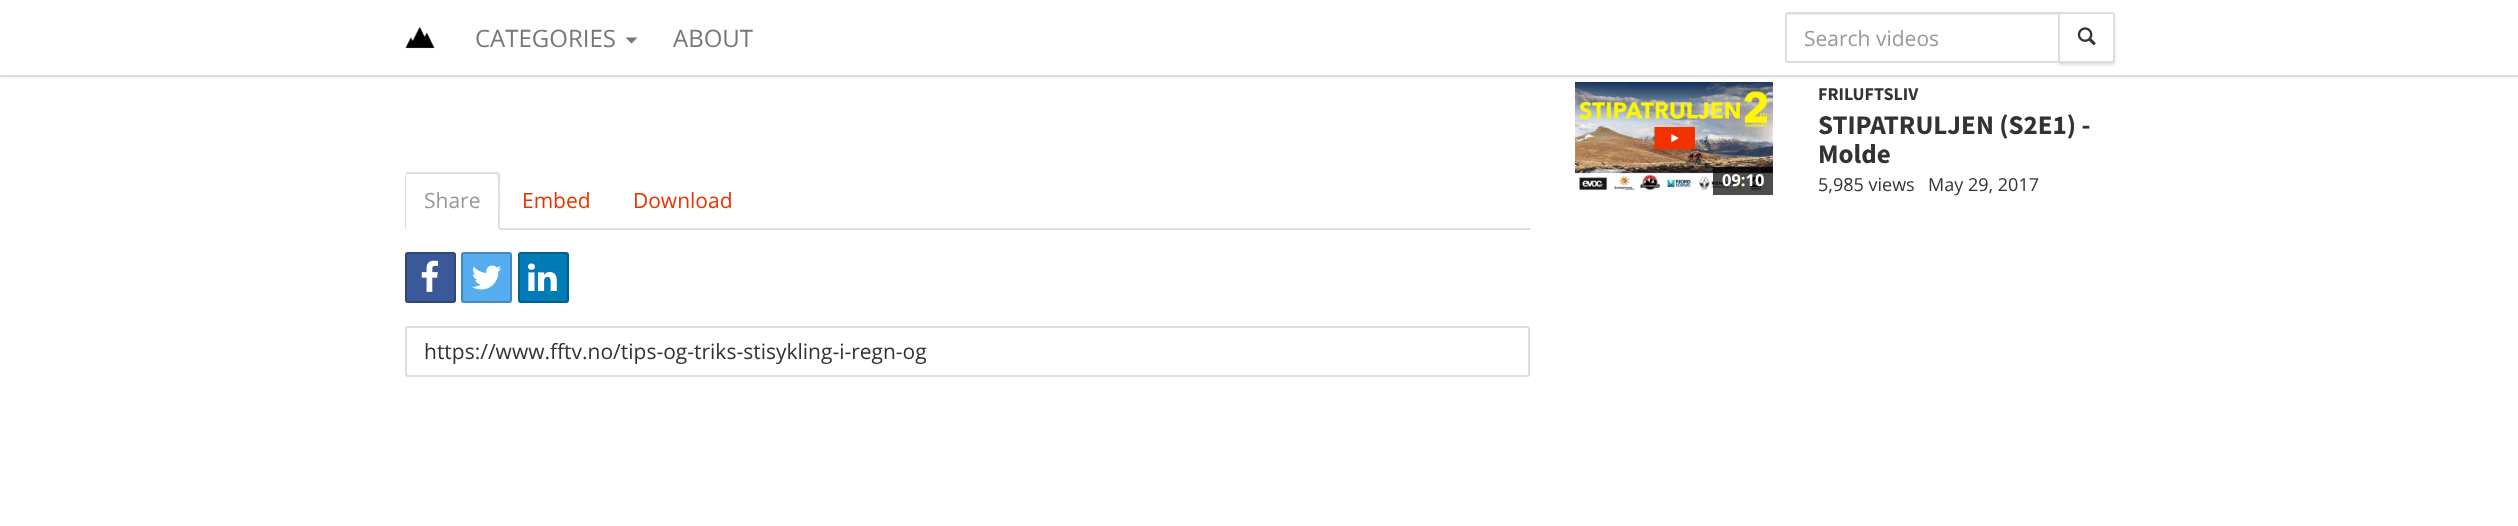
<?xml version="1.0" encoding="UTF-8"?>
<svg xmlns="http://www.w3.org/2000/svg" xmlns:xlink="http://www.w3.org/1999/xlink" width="2518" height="526">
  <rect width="100%" height="100%" fill="#ffffff" />
  <image x="1575" y="82" width="198" height="109" xlink:href="image3.png" />
  <rect width="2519" height="77" fill="#dddddd" filter="blur(1.5px)" />
  <rect width="2518" height="75" fill="#ffffff" />
  <rect y="75" width="2518" height="2" fill="#dddddd" />
  <image x="405" y="27" width="30" height="22" xlink:href="image1.png" />
  <path d="M 625.5 37.5 h 12 l -6 6 z" fill="#777777" />
  <rect x="2058" y="14" width="57" height="51" rx="3" fill="#dddddd" filter="blur(1.5px)" />
  <path d="M 2059 13 h 53 c 1 0 2 1 2 2 v 45 c 0 1 -1 2 -2 2 h -53 z" fill="#ffffff" stroke="#dddddd" stroke-width="2" />
  <path d="M 1788 12 h 272 v 51 h -272 c -1.5 0 -3 -1.5 -3 -3 v -45 c 0 -1.5 1.5 -3 3 -3 z" fill="#ffffff" />
  <path d="M 1788 14 l -1 1 h 271 v -1 z" fill="#ececec" />
  <path d="M 1788 13 h 271 v 49 h -271 c -1 0 -2 -1 -2 -2 v -45 c 0 -1 1 -2 2 -2 z" fill="none" stroke="#dddddd" stroke-width="2" />
  <image x="2077" y="27" width="19" height="19" xlink:href="image2.png" />
  <image x="1654" y="127" width="41" height="23" xlink:href="image4.png" />
  <rect x="1713" y="167" width="60" height="28" fill="#000000" fill-opacity="0.7" />
  <rect x="500" y="228" width="1030" height="2" fill="#dddddd" />
  <path d="M 408 174 h -1 l -1 -1 v -1 h 92 l 1 1 l -2 2 l -1 -1 z" fill="#dddddd" />
  <path d="M 499 173 l 1 1 v 56 l -2 -2 c 0 -6 1 -52 -1 -53 z" fill="#dddddd" />
  <path d="M 405 230 l 1 -2 v -52 l 1 -2 l -1 -1 l -1 3 z" fill="#dddddd" />
  <rect x="405" y="252" width="51" height="51" rx="3" fill="#3b5998" />
  <rect x="406" y="253" width="49" height="49" rx="2" fill="none" stroke="#000000" stroke-opacity="0.2" stroke-width="2" />
  <image x="421" y="260" width="17" height="32" xlink:href="image5.png" />
  <rect x="461" y="252" width="51" height="51" rx="3" fill="#55acee" />
  <rect x="462" y="253" width="49" height="49" rx="2" fill="none" stroke="#000000" stroke-opacity="0.2" stroke-width="2" />
  <image x="472" y="265" width="30" height="25" xlink:href="image6.png" />
  <rect x="518" y="252" width="51" height="51" rx="3" fill="#007bb6" />
  <rect x="519" y="253" width="49" height="49" rx="2" fill="none" stroke="#000000" stroke-opacity="0.2" stroke-width="2" />
  <image x="528" y="263" width="29" height="28" xlink:href="image7.png" />
  <rect x="406" y="327" width="1123" height="49" rx="2" fill="none" stroke="#dddddd" stroke-width="2" />
  <text x="475" y="47" style="font-family: Open Sans; font-size: 24px; fill: #777777">CATEGORIES</text>
  <text x="673" y="47" style="font-family: Open Sans; font-size: 24px; fill: #777777">ABOUT</text>
  <text x="1804" y="46" style="font-family: Open Sans; font-size: 21px; fill: #999999">Search videos</text>
  <text x="1722" y="186" style="font-family: Open Sans; font-size: 16.5px; font-weight: bold; fill: #ffffff">09:10</text>
  <text x="1818" y="100" style="font-family: Source Sans Pro; font-size: 18px; font-weight: bold; fill: #333333">FRILUFTSLIV</text>
  <text x="1818" y="134" style="font-family: Source Sans Pro; font-size: 27px; font-weight: bold; fill: #333333">STIPATRULJEN (S2E1) -</text>
  <text x="1818" y="163" style="font-family: Source Sans Pro; font-size: 27px; font-weight: bold; fill: #333333">Molde</text>
  <text x="1818" y="191" style="font-family: Open Sans; font-size: 18px; fill: #333333">5,985 views</text>
  <text x="1928" y="191" style="font-family: Open Sans; font-size: 18px; fill: #333333">May 29, 2017</text>
  <text x="424" y="208" style="font-family: Open Sans; font-size: 21px; fill: #999999">Share</text>
  <text x="522" y="208" style="font-family: Open Sans; font-size: 21px; fill: #e93400">Embed</text>
  <text x="633" y="208" style="font-family: Open Sans; font-size: 21px; fill: #e93400">Download</text>
  <text x="424" y="359" style="font-family: Open Sans; font-size: 21px; fill: #333333">https://www.fftv.no/tips-og-triks-stisykling-i-regn-og</text>
</svg>
